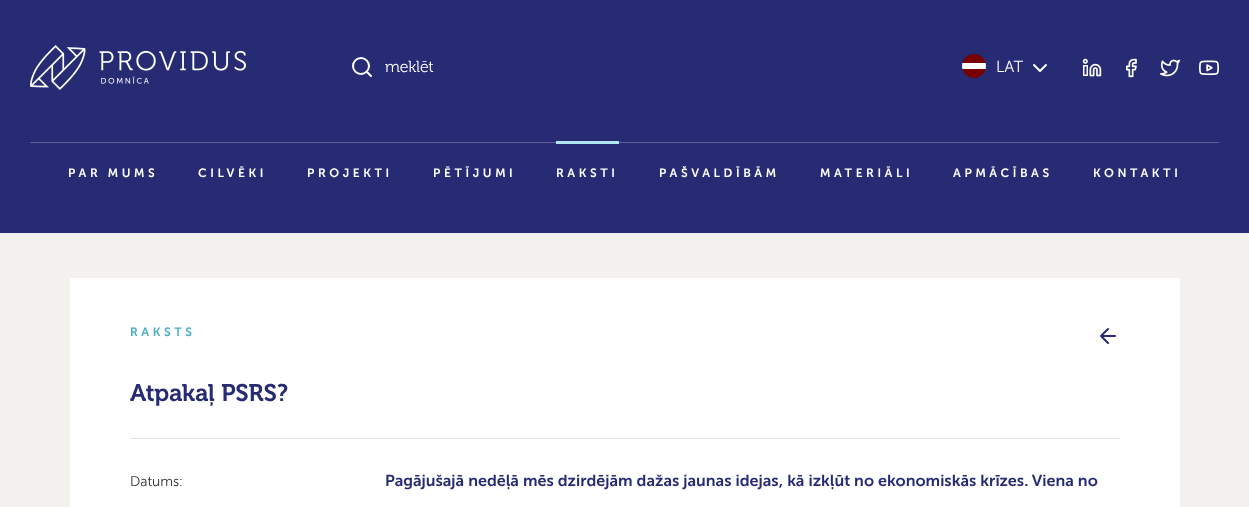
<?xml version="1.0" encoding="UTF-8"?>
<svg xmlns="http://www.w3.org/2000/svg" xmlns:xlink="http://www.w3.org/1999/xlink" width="1249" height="507">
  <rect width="100%" height="100%" fill="#262b73" />
  <image x="30" y="45" width="216" height="45" xlink:href="image1.png" />
  <circle cx="361" cy="66" r="8" fill="none" stroke="#ffffff" stroke-width="2" />
  <path d="M 371 76 l -4.5 -4.5" fill="none" stroke="#ffffff" stroke-width="2" stroke-linecap="round" stroke-linejoin="round" />
  <image x="962" y="54" width="24" height="24" xlink:href="image2.png" />
  <path d="M 1034 65 l 6 6 l 6 -6" fill="none" stroke="#ffffff" stroke-width="2" stroke-linecap="round" stroke-linejoin="round" />
  <image x="1082" y="58" width="20" height="19" xlink:href="image3.png" />
  <image x="1126" y="58" width="11" height="20" xlink:href="image4.png" />
  <image x="1160" y="59" width="20" height="18" xlink:href="image5.png" />
  <image x="1199" y="60" width="20" height="16" xlink:href="image6.png" />
  <rect x="30" y="142" width="1189" height="1" fill="#5c6096" />
  <rect x="556" y="141" width="63" height="3" fill="#b1e5f2" />
  <rect y="233" width="1249" height="274" fill="#f3f1ed" />
  <rect x="70" y="278" width="1110" height="229" fill="#ffffff" />
  <path d="M 1115 336 h -14 m 7 7 l -7 -7 l 7 -7" fill="none" stroke="#262b73" stroke-width="2" stroke-linecap="round" stroke-linejoin="round" />
  <rect x="130" y="438" width="990" height="1" fill="#e3e1df" />
  <text x="385" y="72" style="font-family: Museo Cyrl; font-size: 16px; font-weight: 300; fill: #ffffff">meklēt</text>
  <text x="996" y="72" style="font-family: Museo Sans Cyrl; font-size: 16px; font-weight: 300; fill: #ffffff">LAT</text>
  <text x="68" y="177" style="font-family: Museo Sans Cyrl; font-size: 12px; font-weight: 600; letter-spacing: 3.6px; fill: #ffffff">PAR MUMS</text>
  <text x="198" y="177" style="font-family: Museo Sans Cyrl; font-size: 12px; font-weight: 600; letter-spacing: 3.6px; fill: #ffffff">CILVĒKI</text>
  <text x="307" y="177" style="font-family: Museo Sans Cyrl; font-size: 12px; font-weight: 600; letter-spacing: 3.6px; fill: #ffffff">PROJEKTI</text>
  <text x="433" y="177" style="font-family: Museo Sans Cyrl; font-size: 12px; font-weight: 600; letter-spacing: 3.6px; fill: #ffffff">PĒTĪJUMI</text>
  <text x="556" y="177" style="font-family: Museo Sans Cyrl; font-size: 12px; font-weight: 600; letter-spacing: 3.6px; fill: #ffffff">RAKSTI</text>
  <text x="659" y="177" style="font-family: Museo Sans Cyrl; font-size: 12px; font-weight: 600; letter-spacing: 3.6px; fill: #ffffff">PAŠVALDĪBĀM</text>
  <text x="820" y="177" style="font-family: Museo Sans Cyrl; font-size: 12px; font-weight: 600; letter-spacing: 3.6px; fill: #ffffff">MATERIĀLI</text>
  <text x="953" y="177" style="font-family: Museo Sans Cyrl; font-size: 12px; font-weight: 600; letter-spacing: 3.6px; fill: #ffffff">APMĀCĪBAS</text>
  <text x="1093" y="177" style="font-family: Museo Sans Cyrl; font-size: 12px; font-weight: 600; letter-spacing: 3.6px; fill: #ffffff">KONTAKTI</text>
  <text x="130" y="336" style="font-family: Museo Sans Cyrl; font-size: 12px; font-weight: 600; letter-spacing: 3.6px; fill: #49adc4">RAKSTS</text>
  <text x="130" y="401" style="font-family: Museo Cyrl; font-size: 24px; font-weight: 600; fill: #262b73">Atpakaļ PSRS?</text>
  <text x="130" y="486" style="font-family: Museo Sans Cyrl; font-size: 14px; font-weight: 300; fill: #333231">Datums:</text>
  <text x="385" y="486" style="font-family: Museo Sans Cyrl; font-size: 16px; font-weight: 600; fill: #262b73">Pagājušajā nedēļā mēs dzirdējām dažas jaunas idejas, kā izkļūt no ekonomiskās krīzes. Viena no</text>
</svg>
